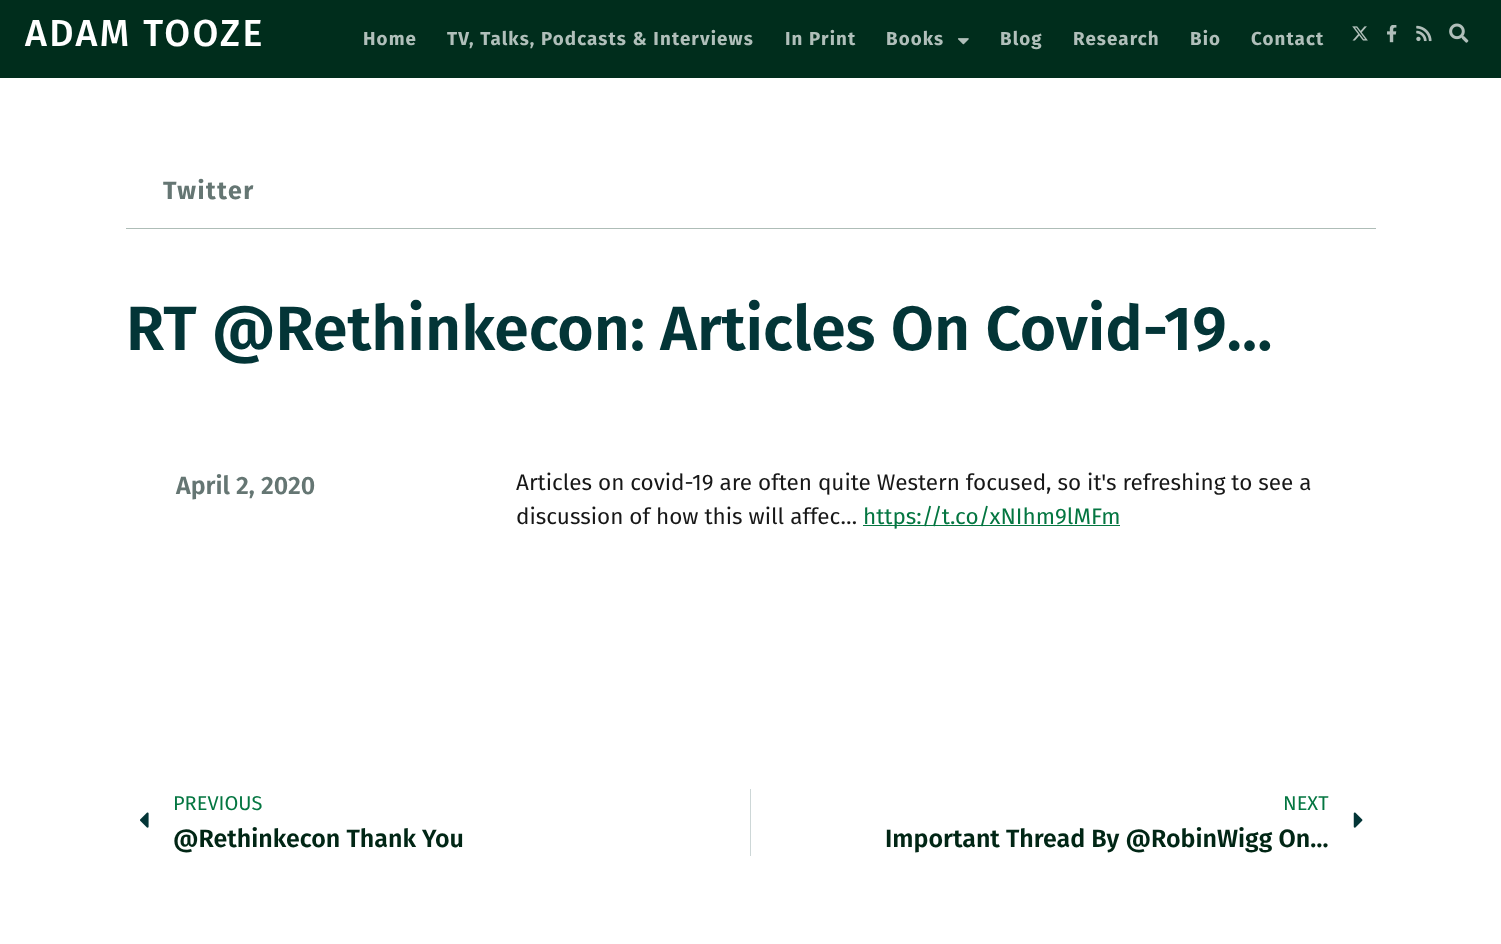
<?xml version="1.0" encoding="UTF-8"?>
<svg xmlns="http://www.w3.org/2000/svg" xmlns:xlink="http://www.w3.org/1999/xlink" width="1501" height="944">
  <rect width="100%" height="100%" fill="#ffffff" />
  <rect width="1501" height="78" fill="#002d1c" />
  <image x="957" y="38" width="12" height="7" xlink:href="image1.png" />
  <image x="1352" y="26" width="16" height="15" xlink:href="image2.png" />
  <image x="1387" y="25" width="10" height="18" xlink:href="image3.png" />
  <image x="1416" y="25" width="16" height="17" xlink:href="image4.png" />
  <image x="1449" y="23" width="20" height="20" xlink:href="image5.png" />
  <rect x="126" y="228" width="1250" height="1" fill="#aebdb7" />
  <rect x="863" y="525" width="257" height="1" fill="#047641" />
  <image x="140" y="812" width="9" height="16" xlink:href="image6.png" />
  <rect x="750" y="789" width="1" height="67" fill="#cdd7d7" />
  <image x="1353" y="812" width="10" height="16" xlink:href="image7.png" />
  <text x="25" y="46" style="font-family: Fira Sans; font-size: 37.5px; font-weight: 500; letter-spacing: 2.4px; fill: #ffffff">ADAM TOOZE</text>
  <text x="363" y="45" style="font-family: Fira Sans; font-size: 18.75px; font-weight: bold; letter-spacing: 1.1px; fill: #b0bfba">Home</text>
  <text x="447" y="45" style="font-family: Fira Sans; font-size: 18.75px; font-weight: bold; letter-spacing: 1.1px; fill: #b0bfba">TV, Talks, Podcasts &amp; Interviews</text>
  <text x="785" y="45" style="font-family: Fira Sans; font-size: 18.75px; font-weight: bold; letter-spacing: 1.1px; fill: #b0bfba">In Print</text>
  <text x="886" y="45" style="font-family: Fira Sans; font-size: 18.75px; font-weight: bold; letter-spacing: 1.1px; fill: #b0bfba">Books</text>
  <text x="1000" y="45" style="font-family: Fira Sans; font-size: 18.75px; font-weight: bold; letter-spacing: 1.1px; fill: #b0bfba">Blog</text>
  <text x="1073" y="45" style="font-family: Fira Sans; font-size: 18.75px; font-weight: bold; letter-spacing: 1.1px; fill: #b0bfba">Research</text>
  <text x="1190" y="45" style="font-family: Fira Sans; font-size: 18.75px; font-weight: bold; letter-spacing: 1.1px; fill: #b0bfba">Bio</text>
  <text x="1251" y="45" style="font-family: Fira Sans; font-size: 18.75px; font-weight: bold; letter-spacing: 1.1px; fill: #b0bfba">Contact</text>
  <text x="163" y="199" style="font-family: Fira Sans; font-size: 25px; font-weight: bold; letter-spacing: 1.5px; fill: #657673">Twitter</text>
  <text x="126" y="350" style="font-family: Fira Sans; font-size: 62.5px; font-weight: 600; fill: #033537">RT @Rethinkecon: Articles On Covid-19…</text>
  <text x="176" y="494" style="font-family: Fira Sans; font-size: 25px; font-weight: 600; fill: #657673">April 2, 2020</text>
  <text x="516" y="490" style="font-family: Fira Sans; font-size: 22.5px; fill: #171717">Articles on covid-19 are often quite Western focused, so it's refreshing to see a</text>
  <text x="516" y="524" style="font-family: Fira Sans; font-size: 22.5px; fill: #171717">discussion of how this will affec…</text>
  <text x="863" y="524" style="font-family: Fira Sans; font-size: 22.5px; fill: #047641">https://t.co/xNIhm9lMFm</text>
  <text x="173" y="810" style="font-family: Fira Sans; font-size: 20px; fill: #047641">PREVIOUS</text>
  <text x="173" y="847" style="font-family: Fira Sans; font-size: 25px; font-weight: 600; fill: #012615">@Rethinkecon Thank You</text>
  <text x="1283" y="810" style="font-family: Fira Sans; font-size: 20px; fill: #047641">NEXT</text>
  <text x="885" y="847" style="font-family: Fira Sans; font-size: 25px; font-weight: 600; fill: #012615">Important Thread By @RobinWigg On…</text>
</svg>
